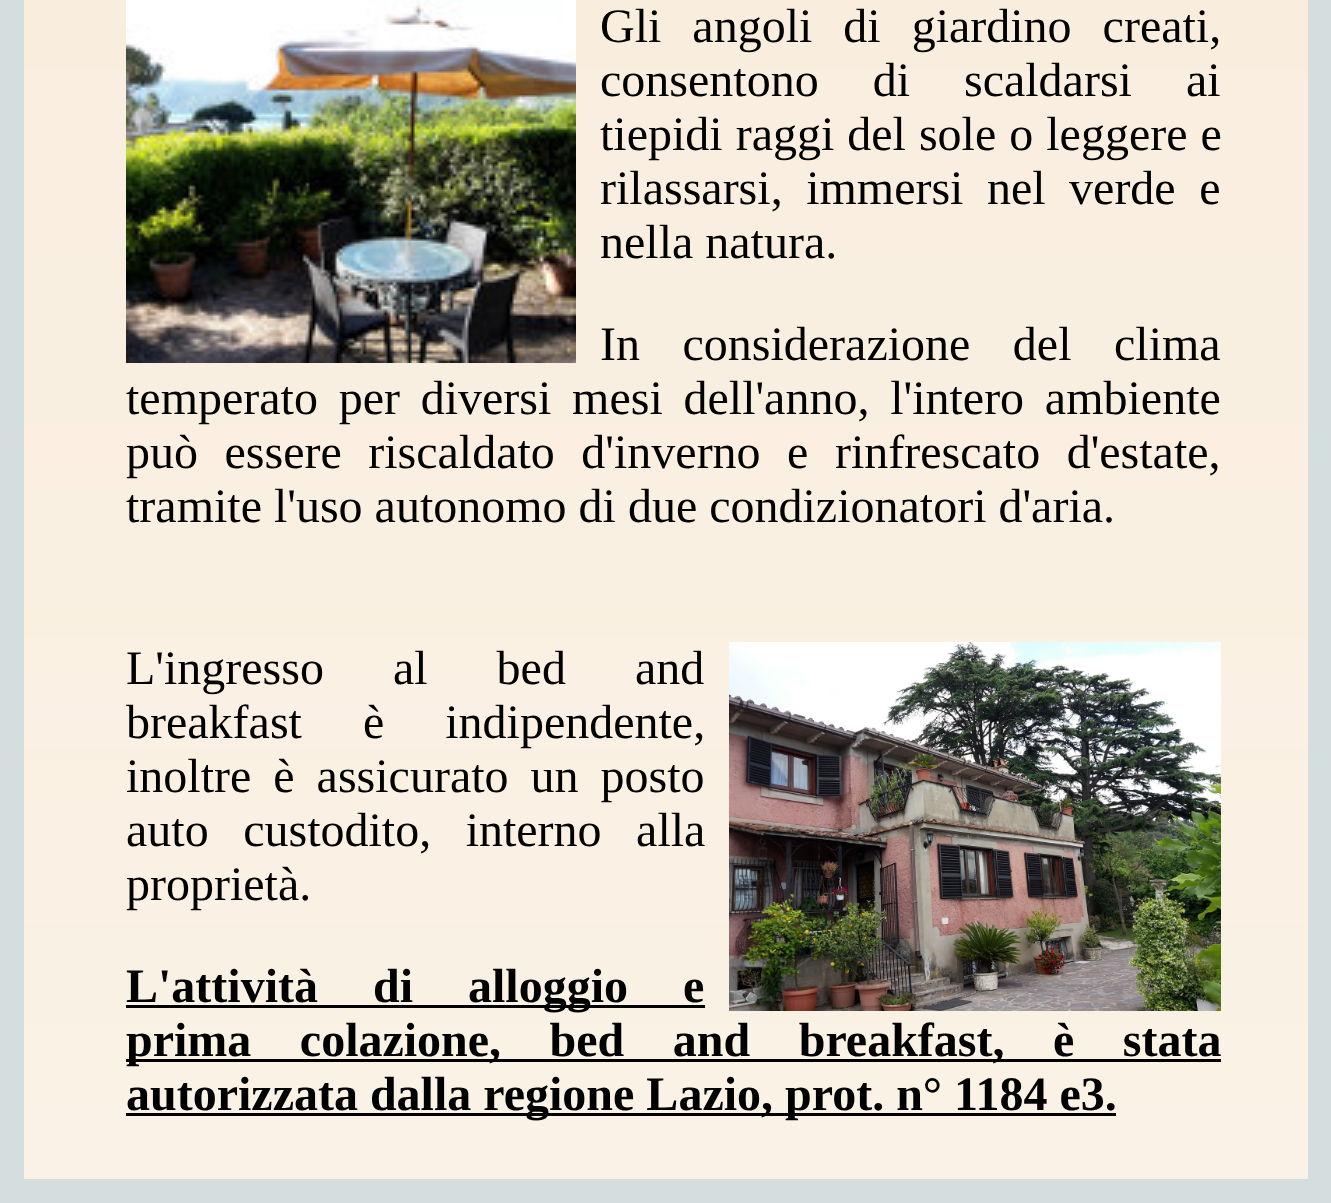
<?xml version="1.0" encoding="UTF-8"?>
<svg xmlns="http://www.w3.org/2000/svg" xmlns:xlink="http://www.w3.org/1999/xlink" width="1331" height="1203">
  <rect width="100%" height="100%" fill="#d4dede" />
  <image x="24" y="0" width="1284" height="1179" xlink:href="image1.png" />
  <image x="126" y="0" width="450" height="363" xlink:href="image2.png" />
  <image x="729" y="642" width="492" height="369" xlink:href="image3.png" />
  <rect x="126" y="1005" width="579" height="3" fill="#000000" />
  <rect x="126" y="1059" width="1095" height="3" fill="#000000" />
  <rect x="126" y="1113" width="990" height="3" fill="#000000" />
  <text x="600" y="42" word-spacing="19" style="font-family: Liberation Serif; font-size: 48px; fill: #000000">Gli angoli di giardino creati,</text>
  <text x="600" y="96" word-spacing="42" style="font-family: Liberation Serif; font-size: 48px; fill: #000000">consentono di scaldarsi ai</text>
  <text x="600" y="150" word-spacing="1" style="font-family: Liberation Serif; font-size: 48px; fill: #000000">tiepidi raggi del sole o leggere e</text>
  <text x="600" y="204" word-spacing="11.5" style="font-family: Liberation Serif; font-size: 48px; fill: #000000">rilassarsi, immersi nel verde e</text>
  <text x="600" y="258" style="font-family: Liberation Serif; font-size: 48px; fill: #000000">nella natura.</text>
  <text x="600" y="360" word-spacing="30.5" style="font-family: Liberation Serif; font-size: 48px; fill: #000000">In considerazione del clima</text>
  <text x="126" y="414" word-spacing="8.75" style="font-family: Liberation Serif; font-size: 48px; fill: #000000">temperato per diversi mesi dell'anno, l'intero ambiente</text>
  <text x="126" y="468" word-spacing="14.5" style="font-family: Liberation Serif; font-size: 48px; fill: #000000">può essere riscaldato d'inverno e rinfrescato d'estate,</text>
  <text x="126" y="522" style="font-family: Liberation Serif; font-size: 48px; fill: #000000">tramite l'uso autonomo di due condizionatori d'aria.</text>
  <text x="126" y="684" word-spacing="57" style="font-family: Liberation Serif; font-size: 48px; fill: #000000">L'ingresso al bed and</text>
  <text x="126" y="738" word-spacing="49" style="font-family: Liberation Serif; font-size: 48px; fill: #000000">breakfast è indipendente,</text>
  <text x="126" y="792" word-spacing="10" style="font-family: Liberation Serif; font-size: 48px; fill: #000000">inoltre è assicurato un posto</text>
  <text x="126" y="846" word-spacing="22.5" style="font-family: Liberation Serif; font-size: 48px; fill: #000000">auto custodito, interno alla</text>
  <text x="126" y="900" style="font-family: Liberation Serif; font-size: 48px; fill: #000000">proprietà.</text>
  <text x="126" y="1002" word-spacing="43" style="font-family: Liberation Serif; font-size: 48px; font-weight: bold; fill: #000000">L'attività di alloggio e</text>
  <text x="126" y="1056" word-spacing="36.5" style="font-family: Liberation Serif; font-size: 48px; font-weight: bold; fill: #000000">prima colazione, bed and breakfast, è stata</text>
  <text x="126" y="1110" style="font-family: Liberation Serif; font-size: 48px; font-weight: bold; fill: #000000">autorizzata dalla regione Lazio, prot. n° 1184 e3.</text>
</svg>
